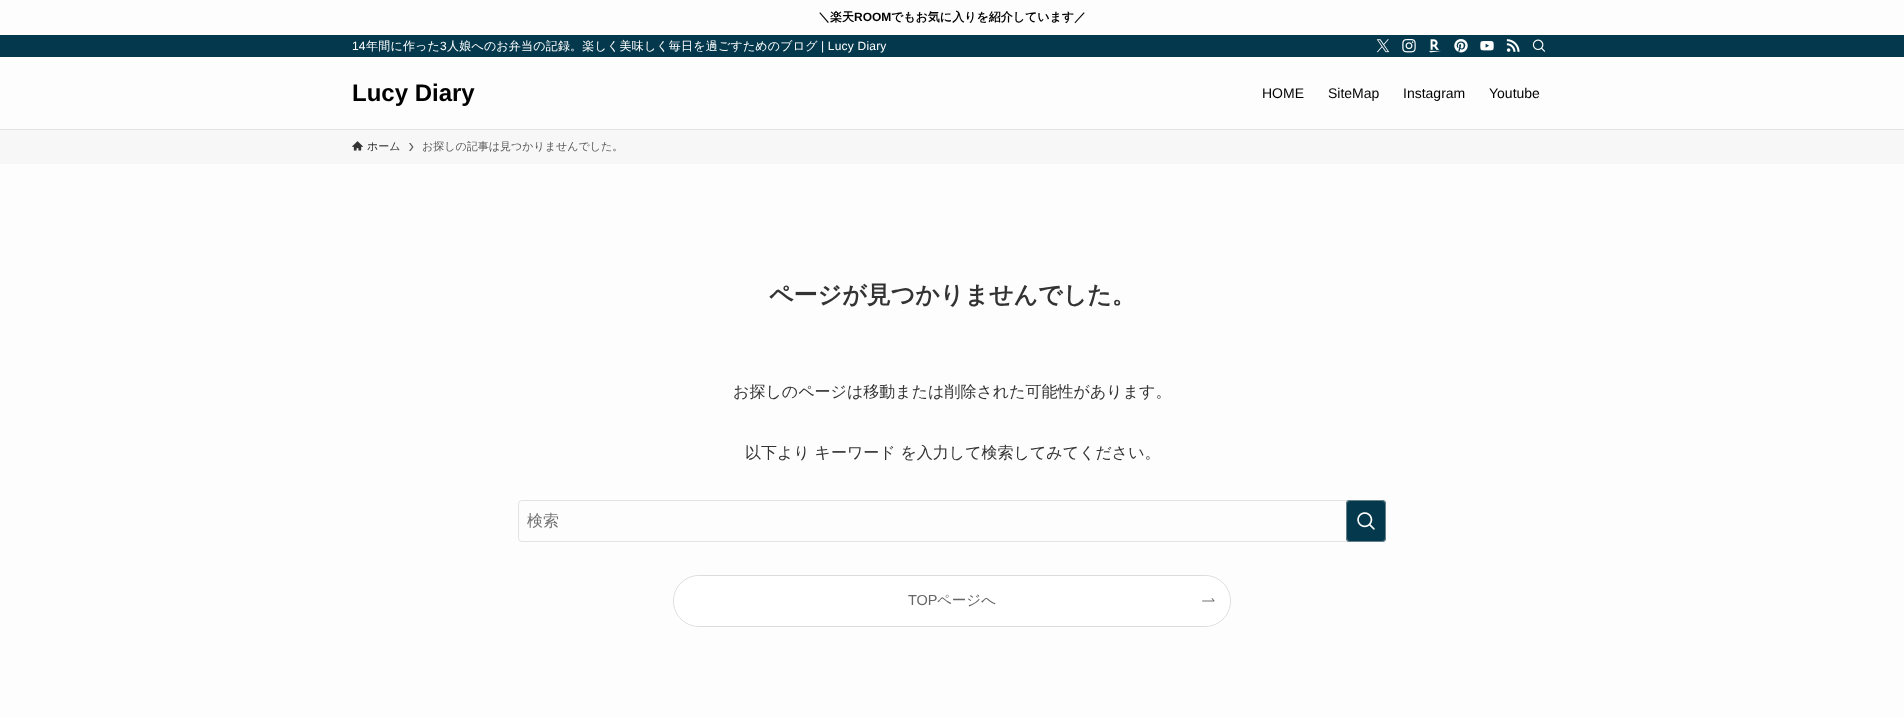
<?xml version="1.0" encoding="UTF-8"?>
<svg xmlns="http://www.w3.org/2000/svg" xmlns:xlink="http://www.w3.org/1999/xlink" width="1904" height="717">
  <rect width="100%" height="100%" fill="#fdfdfd" />
  <rect y="129" width="1904" height="1" fill="#e4e4e4" />
  <rect y="35" width="1904" height="22" fill="#04384c" />
  <image x="1376" y="39" width="14" height="14" xlink:href="image1.png" />
  <image x="1402" y="39" width="14" height="14" xlink:href="image2.png" />
  <image x="1429" y="39" width="12" height="14" xlink:href="image3.png" />
  <image x="1454" y="39" width="14" height="14" xlink:href="image4.png" />
  <image x="1480" y="41" width="14" height="10" xlink:href="image5.png" />
  <image x="1506" y="39" width="14" height="13" xlink:href="image6.png" />
  <image x="1532" y="39" width="14" height="13" xlink:href="image7.png" />
  <rect y="130" width="1904" height="34" fill="#f7f7f7" />
  <image x="352" y="141" width="11" height="10" xlink:href="image8.png" />
  <path d="M 410.5 143 h -1.5 l 3 4 l -3 4 h 1.5 l 3 -4 z" fill="#5a5a5a" />
  <rect x="518.5" y="500.5" width="867" height="41" rx="3.5" fill="none" stroke="#e3e3e3" />
  <rect x="1346" y="500" width="40" height="42" rx="4" fill="#04384c" />
  <rect x="1346.5" y="500.5" width="39" height="41" rx="3.5" fill="none" stroke="#c7c7c7" stroke-opacity="0.5" />
  <image x="1357" y="512" width="18" height="18" xlink:href="image9.png" />
  <rect x="673.5" y="575.5" width="557" height="51" rx="25.5" fill="none" stroke="#dcdcdc" />
  <rect x="674" y="576" width="556" height="50" rx="25" fill="#ffffff" />
  <image x="1202" y="598" width="13" height="4" xlink:href="image10.png" />
  <text x="818" y="21" style="font-family: WenQuanYi Zen Hei; font-size: 12px; font-weight: bold; fill: #000000">＼楽天</text>
  <text x="854" y="21" style="font-family: Liberation Sans; font-size: 12px; font-weight: bold; fill: #000000">ROOM</text>
  <text x="891" y="21" style="font-family: WenQuanYi Zen Hei; font-size: 12px; font-weight: bold; fill: #000000">でもお気に入りを紹介しています／</text>
  <text x="352" y="50" style="font-family: Liberation Sans; font-size: 12px; letter-spacing: 0.2px; fill: #ffffff">14</text>
  <text x="366" y="50" style="font-family: WenQuanYi Zen Hei; font-size: 12px; font-weight: 500; letter-spacing: 0.2px; fill: #ffffff">年間に作った</text>
  <text x="440" y="50" style="font-family: Liberation Sans; font-size: 12px; letter-spacing: 0.2px; fill: #ffffff">3</text>
  <text x="447" y="50" style="font-family: WenQuanYi Zen Hei; font-size: 12px; font-weight: 500; letter-spacing: 0.2px; fill: #ffffff">人娘へのお弁当の記録。楽しく美味しく毎日を過ごすためのブログ</text>
  <text x="821" y="50" style="font-family: Liberation Sans; font-size: 12px; letter-spacing: 0.2px; fill: #ffffff">| Lucy Diary</text>
  <text x="352" y="101" style="font-family: Liberation Sans; font-size: 24px; font-weight: bold; fill: #000000">Lucy Diary</text>
  <text x="1262" y="98" style="font-family: Liberation Sans; font-size: 14px; fill: #000000">HOME</text>
  <text x="1328" y="98" style="font-family: Liberation Sans; font-size: 14px; fill: #000000">SiteMap</text>
  <text x="1403" y="98" style="font-family: Liberation Sans; font-size: 14px; fill: #000000">Instagram</text>
  <text x="1489" y="98" style="font-family: Liberation Sans; font-size: 14px; fill: #000000">Youtube</text>
  <text x="367" y="150" style="font-family: WenQuanYi Zen Hei; font-size: 11px; font-weight: 500; fill: #333333">ホーム</text>
  <text x="422" y="150" style="font-family: WenQuanYi Zen Hei; font-size: 11px; font-weight: 500; fill: #5a5a5a">お探しの記事は見つかりませんでした。</text>
  <text x="769" y="303" style="font-family: WenQuanYi Zen Hei; font-size: 24px; font-weight: bold; fill: #333333">ページが見つかりませんでした。</text>
  <text x="733" y="397" style="font-family: WenQuanYi Zen Hei; font-size: 16px; font-weight: 500; fill: #333333">お探しのページは移動または削除された可能性があります。</text>
  <text x="745" y="458" style="font-family: WenQuanYi Zen Hei; font-size: 16px; font-weight: 500; fill: #333333">以下より キーワード を入力して検索してみてください。</text>
  <text x="527" y="526" style="font-family: WenQuanYi Zen Hei; font-size: 16px; font-weight: 500; fill: #757575">検索</text>
  <text x="908" y="605" style="font-family: Liberation Sans; font-size: 14.5px; fill: #666666">TOP</text>
  <text x="937" y="605" style="font-family: WenQuanYi Zen Hei; font-size: 14.5px; font-weight: 500; fill: #666666">ページへ</text>
</svg>
